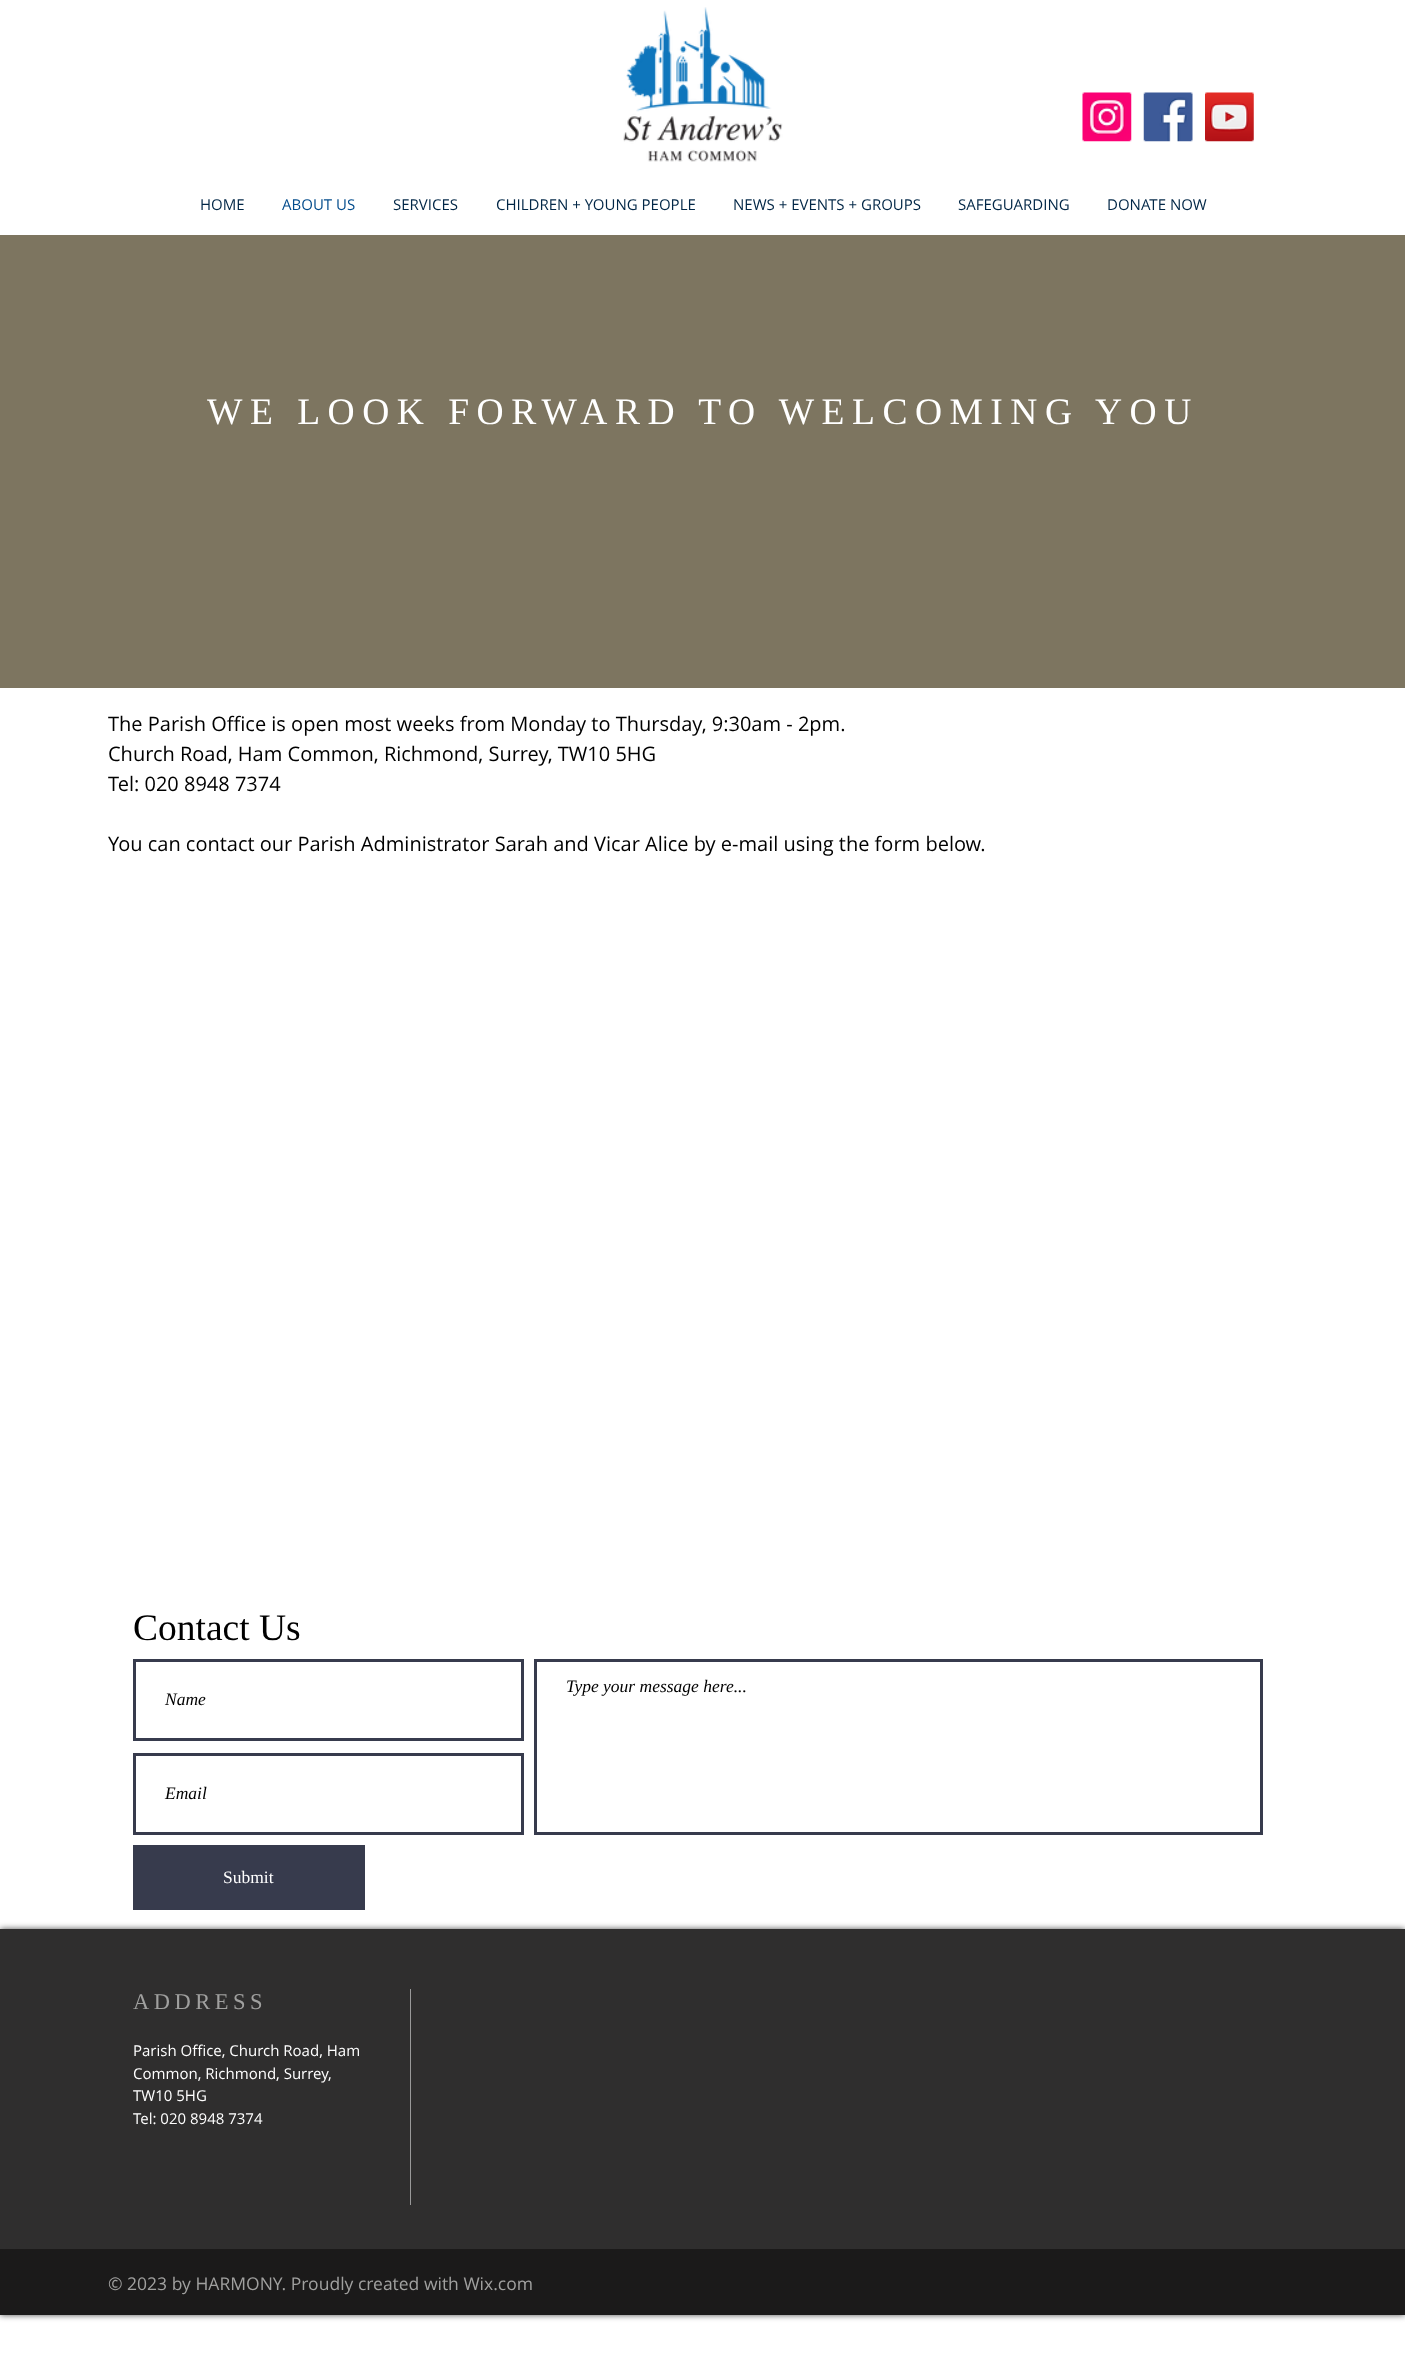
<?xml version="1.0" encoding="UTF-8"?>
<svg xmlns="http://www.w3.org/2000/svg" xmlns:xlink="http://www.w3.org/1999/xlink" width="1405" height="2367">
  <rect width="100%" height="100%" fill="#ffffff" />
  <image x="623" y="7" width="160" height="155" xlink:href="image1.png" />
  <image x="1082" y="92" width="50" height="50" xlink:href="image2.png" />
  <image x="1143" y="92" width="50" height="50" xlink:href="image3.png" />
  <image x="1205" y="92" width="49" height="50" xlink:href="image4.png" />
  <rect y="235" width="1405" height="453" fill="#7d7560" />
  <rect x="535.5" y="1660.5" width="726" height="173" fill="none" stroke="#373b4d" stroke-width="3" />
  <rect x="134.5" y="1660.5" width="388" height="79" fill="none" stroke="#373b4d" stroke-width="3" />
  <rect x="134.5" y="1754.5" width="388" height="79" fill="none" stroke="#373b4d" stroke-width="3" />
  <rect x="133" y="1845" width="232" height="65" fill="#373b4d" />
  <rect y="1929" width="1405" height="386" fill="#000000" fill-opacity="0.7" filter="blur(3px)" />
  <rect y="1929" width="1405" height="320" fill="#2f2e2e" />
  <rect x="410" y="1989" width="1" height="216" fill="#999999" />
  <rect y="2249" width="1405" height="66" fill="#1b1a1a" />
  <text x="200" y="210" style="font-family: Open Sans; font-size: 15px; fill: #012646">HOME</text>
  <text x="282" y="210" style="font-family: Open Sans; font-size: 15px; fill: #034c8c">ABOUT US</text>
  <text x="393" y="210" style="font-family: Open Sans; font-size: 15px; fill: #012646">SERVICES</text>
  <text x="496" y="210" style="font-family: Open Sans; font-size: 15px; fill: #012646">CHILDREN + YOUNG PEOPLE</text>
  <text x="733" y="210" style="font-family: Open Sans; font-size: 15px; fill: #012646">NEWS + EVENTS + GROUPS</text>
  <text x="958" y="210" style="font-family: Open Sans; font-size: 15px; fill: #012646">SAFEGUARDING</text>
  <text x="1107" y="210" style="font-family: Open Sans; font-size: 15px; fill: #012646">DONATE NOW</text>
  <text x="207" y="424" style="font-family: Liberation Serif; font-size: 37.5px; letter-spacing: 7.5px; fill: #ffffff">WE LOOK FORWARD TO WELCOMING YOU</text>
  <text x="108" y="731" style="font-family: Open Sans; font-size: 20px; fill: #000000">The Parish Office is open most weeks from Monday to Thursday, 9:30am - 2pm.</text>
  <text x="108" y="761" style="font-family: Open Sans; font-size: 20px; fill: #000000">Church Road, Ham Common, Richmond, Surrey, TW10 5HG</text>
  <text x="108" y="791" style="font-family: Open Sans; font-size: 20px; fill: #000000">Tel: 020 8948 7374</text>
  <text x="108" y="851" style="font-family: Open Sans; font-size: 20px; fill: #000000">You can contact our Parish Administrator Sarah and Vicar Alice by e-mail using the form below.</text>
  <text x="133" y="1640" style="font-family: Liberation Serif; font-size: 37.5px; fill: #000000">Contact Us</text>
  <text x="566" y="1692" style="font-family: Liberation Serif; font-size: 17.5px; font-style: italic; fill: #000000">Type your message here...</text>
  <text x="165" y="1705" style="font-family: Liberation Serif; font-size: 17.5px; font-style: italic; fill: #000000">Name</text>
  <text x="165" y="1799" style="font-family: Liberation Serif; font-size: 17.5px; font-style: italic; fill: #000000">Email</text>
  <text x="223" y="1883" style="font-family: Liberation Serif; font-size: 17.5px; fill: #ffffff">Submit</text>
  <text x="133" y="2009" style="font-family: Liberation Serif; font-size: 22.5px; letter-spacing: 4.5px; fill: #a0a09f">ADDRESS</text>
  <text x="133" y="2056" style="font-family: Open Sans; font-size: 15px; fill: #ffffff">Parish Office, Church Road, Ham</text>
  <text x="133" y="2079" style="font-family: Open Sans; font-size: 15px; fill: #ffffff">Common, Richmond, Surrey,</text>
  <text x="133" y="2101" style="font-family: Open Sans; font-size: 15px; fill: #ffffff">TW10 5HG</text>
  <text x="133" y="2124" style="font-family: Open Sans; font-size: 15px; fill: #ffffff">Tel: 020 8948 7374</text>
  <text x="108" y="2290" style="font-family: Open Sans; font-size: 17.5px; fill: #a0a09f">© 2023 by HARMONY. Proudly created with Wix.com</text>
</svg>
